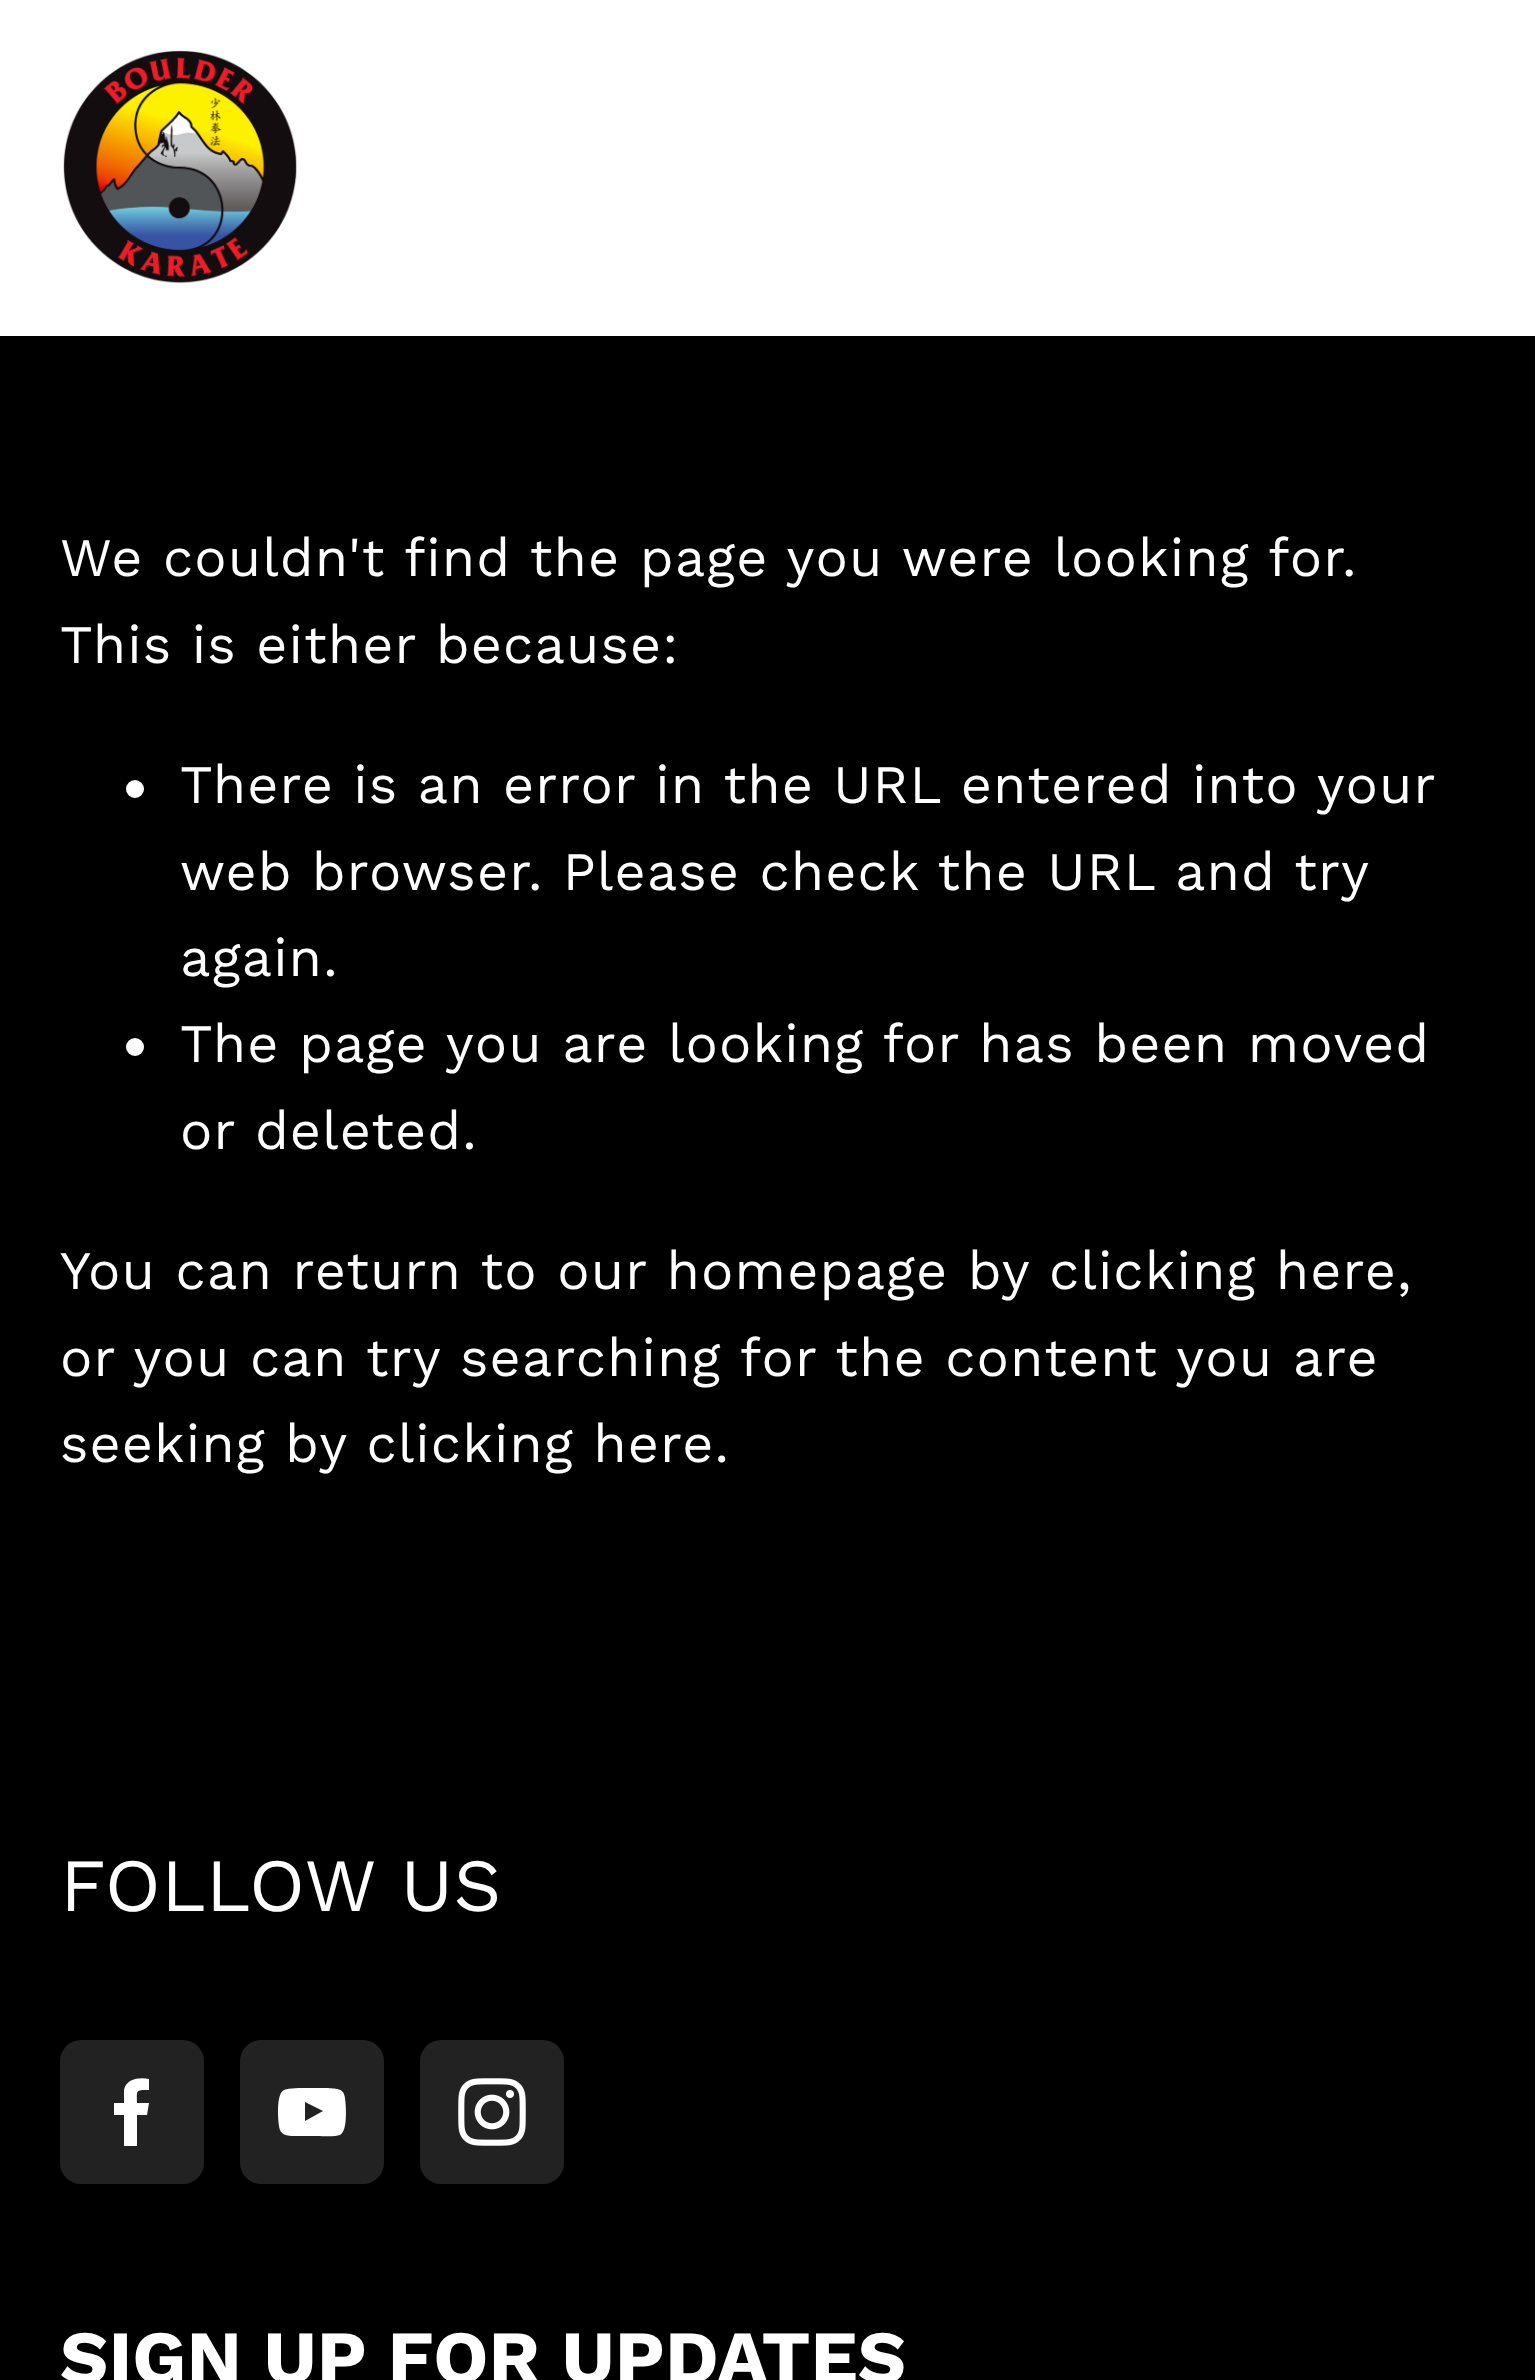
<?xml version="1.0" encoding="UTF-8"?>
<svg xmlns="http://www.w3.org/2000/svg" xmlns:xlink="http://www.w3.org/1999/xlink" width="1535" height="2380">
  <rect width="100%" height="100%" fill="#000000" />
  <rect width="1535" height="336" fill="#ffffff" />
  <image x="63" y="50" width="234" height="234" xlink:href="image1.png" />
  <circle cx="135" cy="789" r="9" fill="#ffffff" />
  <circle cx="135" cy="1047" r="9" fill="#ffffff" />
  <rect x="60" y="2040" width="144" height="144" rx="21" fill="#222222" />
  <path d="M 137 2146 v -31 h 10 l 2 -12 h -12 c 0 -13 -2 -13 12 -13 v -11 c -10 -2 -23 0 -25 11 v 13 h -10 v 12 h 10 v 31 z" fill="#ffffff" />
  <rect x="240" y="2040" width="144" height="144" rx="21" fill="#222222" />
  <path d="M 345 2098 c -1 -10 -8 -9 -17 -10 h -21 c -6 0 -18 0 -23 2 c -8 4 -6 28 -5 36 c 1 11 11 10 20 10 h 18 c 6 0 18 1 23 -1 c 8 -4 6 -29 5 -37 z m -40 23 v -19 l 18 9 z" fill="#ffffff" />
  <rect x="420" y="2040" width="144" height="144" rx="21" fill="#222222" />
  <image x="458" y="2078" width="68" height="68" xlink:href="image2.png" />
  <text x="60" y="576" style="font-family: Work Sans; font-size: 54px; letter-spacing: 1.1px; fill: #ffffff">We couldn't find the page you were looking for.</text>
  <text x="60" y="663" style="font-family: Work Sans; font-size: 54px; letter-spacing: 1.1px; fill: #ffffff">This is either because:</text>
  <text x="180" y="803" word-spacing="-0.25" style="font-family: Work Sans; font-size: 54px; letter-spacing: 1.1px; fill: #ffffff">There is an error in the URL entered into your</text>
  <text x="180" y="890" word-spacing="-0.25" style="font-family: Work Sans; font-size: 54px; letter-spacing: 1.1px; fill: #ffffff">web browser. Please check the URL and try</text>
  <text x="180" y="976" style="font-family: Work Sans; font-size: 54px; letter-spacing: 1.1px; fill: #ffffff">again.</text>
  <text x="180" y="1062" style="font-family: Work Sans; font-size: 54px; letter-spacing: 1.1px; fill: #ffffff">The page you are looking for has been moved</text>
  <text x="180" y="1149" style="font-family: Work Sans; font-size: 54px; letter-spacing: 1.1px; fill: #ffffff">or deleted.</text>
  <text x="60" y="1289" style="font-family: Work Sans; font-size: 54px; letter-spacing: 1.1px; fill: #ffffff">You can return to our homepage by clicking here,</text>
  <text x="60" y="1376" style="font-family: Work Sans; font-size: 54px; letter-spacing: 1.1px; fill: #ffffff">or you can try searching for the content you are</text>
  <text x="60" y="1462" style="font-family: Work Sans; font-size: 54px; letter-spacing: 1.1px; fill: #ffffff">seeking by clicking here.</text>
  <text x="60" y="1911" style="font-family: Work Sans; font-size: 75px; fill: #ffffff">FOLLOW US</text>
  <text x="60" y="2383" style="font-family: Work Sans; font-size: 75px; font-weight: bold; fill: #ffffff">SIGN UP FOR UPDATES</text>
</svg>
